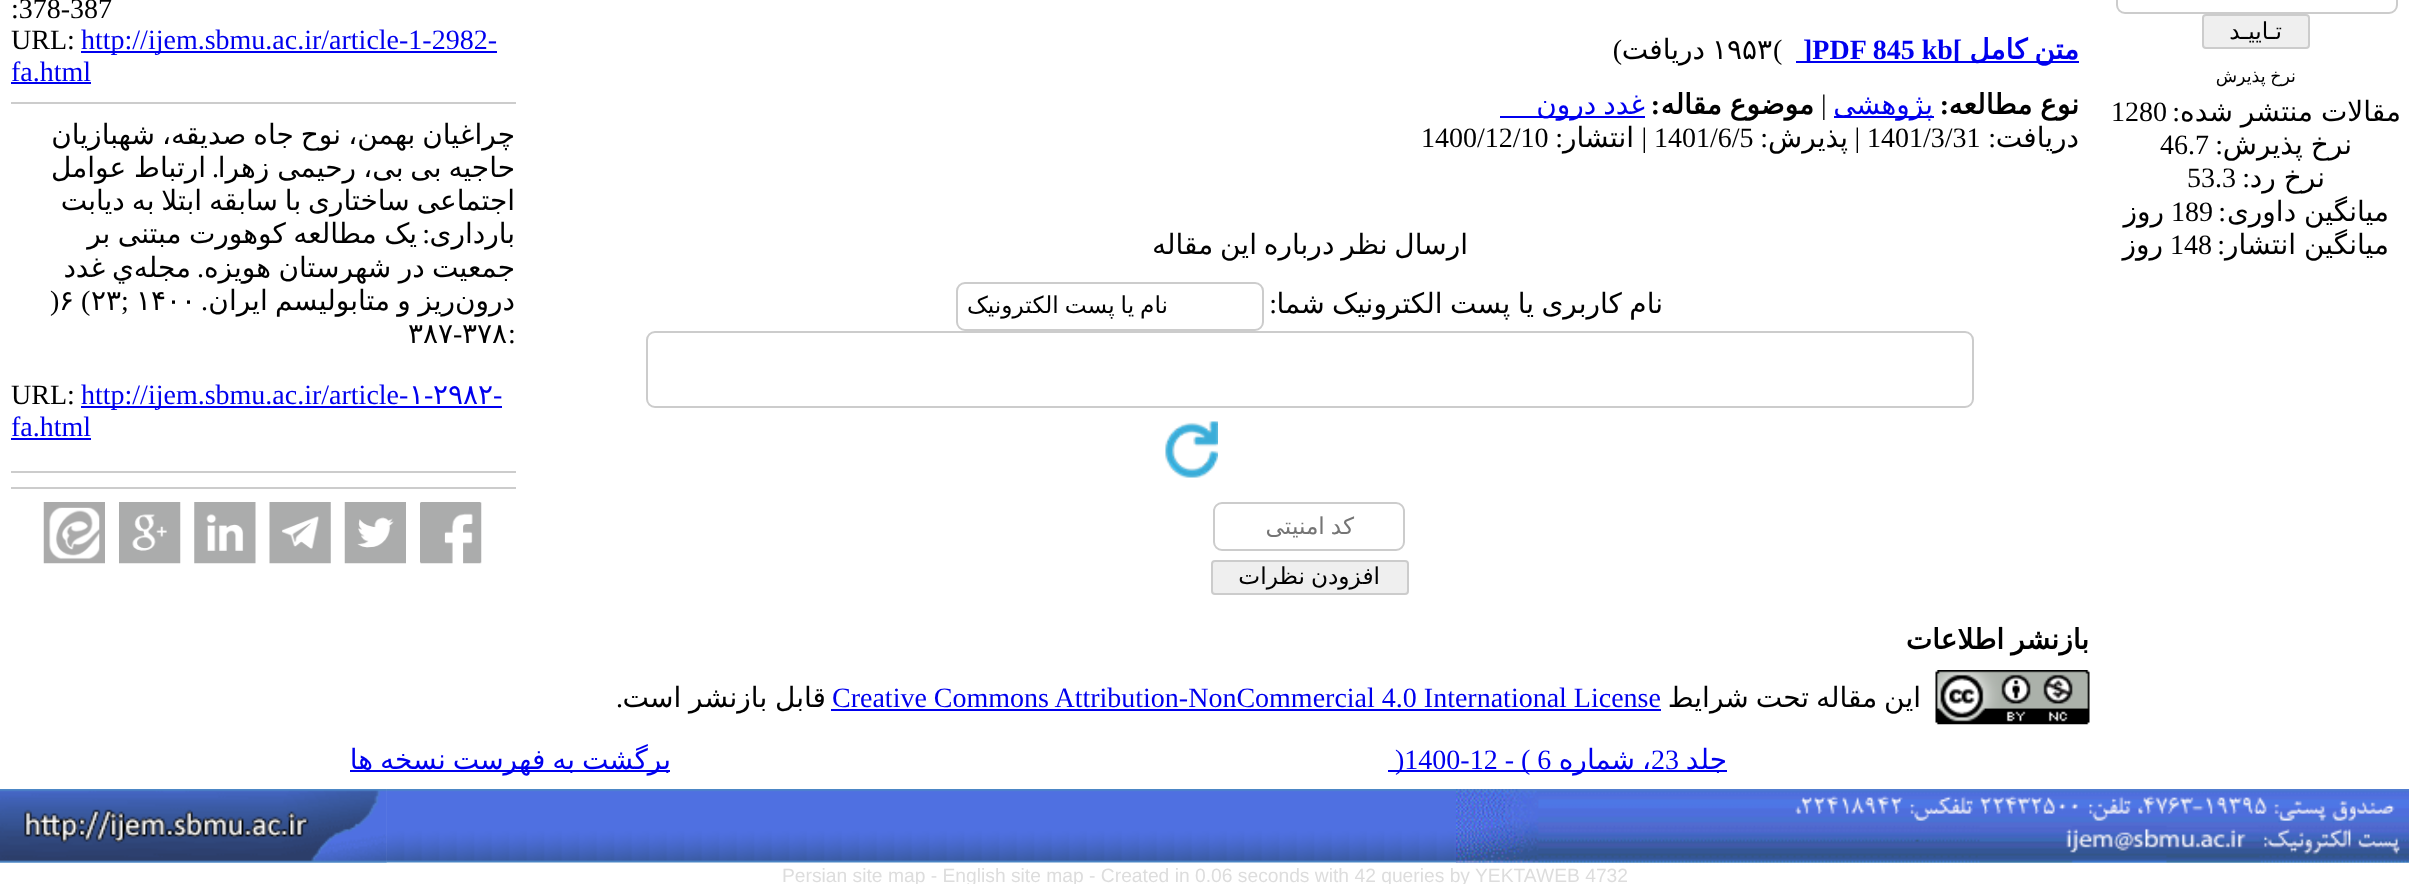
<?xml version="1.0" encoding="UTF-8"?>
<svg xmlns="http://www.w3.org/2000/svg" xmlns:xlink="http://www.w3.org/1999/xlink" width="2409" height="884">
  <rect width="100%" height="100%" fill="#ffffff" />
  <rect x="2117" y="-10" width="280" height="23" rx="8" fill="none" stroke="#cccccc" stroke-width="2" />
  <rect x="2203" y="15" width="106" height="33" rx="3" fill="#efefef" stroke="#cccccc" stroke-width="2" />
  <rect x="1962" y="61" width="117" height="2" fill="#0000ee" />
  <rect x="1796" y="61" width="166" height="2" fill="#0000ee" />
  <rect x="1834" y="116" width="100" height="2" fill="#0000ee" />
  <rect x="1500" y="116" width="145" height="2" fill="#0000ee" />
  <rect x="957" y="283" width="306" height="47" rx="8" fill="none" stroke="#cccccc" stroke-width="2" />
  <rect x="647" y="332" width="1326" height="75" rx="8" fill="none" stroke="#cccccc" stroke-width="2" />
  <image x="1165" y="421" width="53" height="57" xlink:href="image1.png" />
  <rect x="1214" y="503" width="190" height="47" rx="8" fill="none" stroke="#cccccc" stroke-width="2" />
  <rect x="1212" y="561" width="196" height="33" rx="3" fill="#efefef" stroke="#cccccc" stroke-width="2" />
  <rect x="81" y="51" width="416" height="2" fill="#0000ee" />
  <rect x="11" y="82" width="80" height="2" fill="#0000ee" />
  <rect x="11" y="102" width="505" height="2" fill="#cccccc" />
  <rect x="81" y="406" width="421" height="2" fill="#0000ee" />
  <rect x="11" y="438" width="80" height="2" fill="#0000ee" />
  <rect x="11" y="471" width="505" height="2" fill="#cccccc" />
  <rect x="11" y="487" width="505" height="2" fill="#cccccc" />
  <image x="420" y="502" width="62" height="62" xlink:href="image2.png" />
  <image x="344" y="502" width="62" height="62" xlink:href="image3.png" />
  <image x="269" y="502" width="62" height="62" xlink:href="image4.png" />
  <image x="194" y="502" width="62" height="62" xlink:href="image5.png" />
  <image x="119" y="502" width="62" height="62" xlink:href="image6.png" />
  <image x="43" y="502" width="62" height="62" xlink:href="image7.png" />
  <image x="1935" y="670" width="155" height="55" xlink:href="image8.png" />
  <rect x="831" y="709" width="830" height="2" fill="#0000ee" />
  <rect x="1650" y="770" width="77" height="2" fill="#0000ee" />
  <rect x="1388" y="770" width="262" height="2" fill="#0000ee" />
  <rect x="350" y="770" width="320" height="2" fill="#0000ee" />
  <image x="386" y="789" width="2023" height="74" xlink:href="image9.png" />
  <image x="1456" y="789" width="953" height="74" xlink:href="image10.png" />
  <image x="0" y="789" width="387" height="74" xlink:href="image11.png" />
  <image x="0" y="789" width="387" height="74" xlink:href="image12.png" />
  <text x="2282" y="39" style="font-family: DejaVu Sans; font-size: 23.25px; direction: rtl; fill: #000000">تـاییـد</text>
  <text x="2296" y="82" word-spacing="-1" style="font-family: DejaVu Sans; font-size: 17.5px; direction: rtl; fill: #000000">نرخ پذیرش</text>
  <text x="2401" y="121" word-spacing="-1" style="font-family: DejaVu Sans; font-size: 28px; direction: rtl; fill: #000000">مقالات منتشر شده</text>
  <text x="2180" y="121" style="font-family: Liberation Serif; font-size: 28px; direction: rtl; fill: #000000">:</text>
  <text x="2111" y="121" style="font-family: Liberation Serif; font-size: 28px; fill: #000000">1280</text>
  <text x="2352" y="154" word-spacing="-1" style="font-family: DejaVu Sans; font-size: 28px; direction: rtl; fill: #000000">نرخ پذیرش</text>
  <text x="2223" y="154" style="font-family: Liberation Serif; font-size: 28px; direction: rtl; fill: #000000">:</text>
  <text x="2160" y="154" style="font-family: Liberation Serif; font-size: 28px; fill: #000000">46.7</text>
  <text x="2325" y="187" word-spacing="-1" style="font-family: DejaVu Sans; font-size: 28px; direction: rtl; fill: #000000">نرخ رد</text>
  <text x="2250" y="187" style="font-family: Liberation Serif; font-size: 28px; direction: rtl; fill: #000000">:</text>
  <text x="2187" y="187" style="font-family: Liberation Serif; font-size: 28px; fill: #000000">53.3</text>
  <text x="2389" y="221" word-spacing="-1" style="font-family: DejaVu Sans; font-size: 28px; direction: rtl; fill: #000000">میانگین داوری</text>
  <text x="2226" y="221" style="font-family: Liberation Serif; font-size: 28px; direction: rtl; fill: #000000">:</text>
  <text x="2171" y="221" style="font-family: Liberation Serif; font-size: 28px; fill: #000000">189</text>
  <text x="2164" y="221" style="font-family: DejaVu Sans; font-size: 28px; direction: rtl; fill: #000000">روز</text>
  <text x="2389" y="254" word-spacing="-1" style="font-family: DejaVu Sans; font-size: 28px; direction: rtl; fill: #000000">میانگین انتشار</text>
  <text x="2225" y="254" style="font-family: Liberation Serif; font-size: 28px; direction: rtl; fill: #000000">:</text>
  <text x="2170" y="254" style="font-family: Liberation Serif; font-size: 28px; fill: #000000">148</text>
  <text x="2163" y="254" style="font-family: DejaVu Sans; font-size: 28px; direction: rtl; fill: #000000">روز</text>
  <text x="2079" y="59" word-spacing="-2" style="font-family: DejaVu Sans; font-size: 28px; font-weight: bold; direction: rtl; fill: #0000ee">متن کامل</text>
  <text x="1803" y="59" style="font-family: Liberation Serif; font-size: 28px; font-weight: bold; fill: #0000ee">]PDF 845 kb[</text>
  <text x="1773" y="59" style="font-family: Liberation Serif; font-size: 28px; fill: #000000">(</text>
  <text x="1712" y="59" style="font-family: DejaVu Sans; font-size: 28px; fill: #000000">۱۹۵۳</text>
  <text x="1705" y="59" style="font-family: DejaVu Sans; font-size: 28px; direction: rtl; fill: #000000">دریافت</text>
  <text x="1622" y="59" style="font-family: Liberation Serif; font-size: 28px; direction: rtl; fill: #000000">)</text>
  <text x="2079" y="114" word-spacing="-1" style="font-family: DejaVu Sans; font-size: 28px; font-weight: bold; direction: rtl; fill: #000000">نوع مطالعه</text>
  <text x="1949" y="114" style="font-family: Liberation Serif; font-size: 28px; font-weight: bold; direction: rtl; fill: #000000">:</text>
  <text x="1933" y="114" style="font-family: DejaVu Sans; font-size: 28px; direction: rtl; fill: #0000ee">پژوهشی</text>
  <text x="1821" y="114" style="font-family: Liberation Serif; font-size: 28px; fill: #000000">|</text>
  <text x="1814" y="114" word-spacing="-1" style="font-family: DejaVu Sans; font-size: 28px; font-weight: bold; direction: rtl; fill: #000000">موضوع مقاله</text>
  <text x="1660" y="114" style="font-family: Liberation Serif; font-size: 28px; font-weight: bold; direction: rtl; fill: #000000">:</text>
  <text x="1645" y="114" word-spacing="-2" style="font-family: DejaVu Sans; font-size: 28px; direction: rtl; fill: #0000ee">غدد درون</text>
  <text x="2079" y="147" style="font-family: DejaVu Sans; font-size: 28px; direction: rtl; fill: #000000">دریافت</text>
  <text x="1996" y="147" style="font-family: Liberation Serif; font-size: 28px; direction: rtl; fill: #000000">:</text>
  <text x="1867" y="147" style="font-family: Liberation Serif; font-size: 28px; fill: #000000">1401/3/31</text>
  <text x="1860" y="147" style="font-family: Liberation Serif; font-size: 28px; direction: rtl; fill: #000000">|</text>
  <text x="1848" y="147" style="font-family: DejaVu Sans; font-size: 28px; direction: rtl; fill: #000000">پذیرش</text>
  <text x="1768" y="147" style="font-family: Liberation Serif; font-size: 28px; direction: rtl; fill: #000000">:</text>
  <text x="1654" y="147" style="font-family: Liberation Serif; font-size: 28px; fill: #000000">1401/6/5</text>
  <text x="1647" y="147" style="font-family: Liberation Serif; font-size: 28px; direction: rtl; fill: #000000">|</text>
  <text x="1634" y="147" style="font-family: DejaVu Sans; font-size: 28px; direction: rtl; fill: #000000">انتشار</text>
  <text x="1563" y="147" style="font-family: Liberation Serif; font-size: 28px; direction: rtl; fill: #000000">:</text>
  <text x="1421" y="147" style="font-family: Liberation Serif; font-size: 28px; fill: #000000">1400/12/10</text>
  <text x="1468" y="254" word-spacing="-2" style="font-family: DejaVu Sans; font-size: 28px; direction: rtl; fill: #000000">ارسال نظر درباره این مقاله</text>
  <text x="1663" y="313" word-spacing="-1.5" style="font-family: DejaVu Sans; font-size: 28px; direction: rtl; fill: #000000">نام کاربری یا پست الکترونیک شما</text>
  <text x="1277" y="313" style="font-family: Liberation Serif; font-size: 28px; direction: rtl; fill: #000000">:</text>
  <text x="1168" y="313" word-spacing="-1.5" style="font-family: DejaVu Sans; font-size: 23.25px; direction: rtl; fill: #000000">نام یا پست الکترونیک</text>
  <text x="1354" y="534" word-spacing="-1.5" style="font-family: DejaVu Sans; font-size: 23.25px; direction: rtl; fill: #757575">کد امنیتی</text>
  <text x="1380" y="584" word-spacing="-1.5" style="font-family: DejaVu Sans; font-size: 23.25px; direction: rtl; fill: #000000">افزودن نظرات</text>
  <text x="11" y="18" style="font-family: Liberation Serif; font-size: 28px; fill: #000000">:378-387</text>
  <text x="81" y="49" style="font-family: Liberation Serif; font-size: 28px; fill: #0000ee">http://ijem.sbmu.ac.ir/article-1-2982-</text>
  <text x="11" y="49" style="font-family: Liberation Serif; font-size: 28px; fill: #000000">URL:</text>
  <text x="11" y="81" style="font-family: Liberation Serif; font-size: 28px; fill: #0000ee">fa.html</text>
  <text x="515" y="144" word-spacing="-2" style="font-family: DejaVu Sans; font-size: 28px; direction: rtl; fill: #000000">چراغیان بهمن،</text>
  <text x="341" y="144" word-spacing="-2" style="font-family: DejaVu Sans; font-size: 28px; direction: rtl; fill: #000000">نوح جاه صدیقه،</text>
  <text x="155" y="144" style="font-family: DejaVu Sans; font-size: 28px; direction: rtl; fill: #000000">شهبازیان</text>
  <text x="515" y="177" word-spacing="-2" style="font-family: DejaVu Sans; font-size: 28px; direction: rtl; fill: #000000">حاجیه بی بی،</text>
  <text x="356" y="177" word-spacing="-1" style="font-family: DejaVu Sans; font-size: 28px; direction: rtl; fill: #000000">رحیمی زهرا</text>
  <text x="219" y="177" style="font-family: Liberation Serif; font-size: 28px; direction: rtl; fill: #000000">.</text>
  <text x="206" y="177" word-spacing="-1" style="font-family: DejaVu Sans; font-size: 28px; direction: rtl; fill: #000000">ارتباط عوامل</text>
  <text x="515" y="210" word-spacing="-2" style="font-family: DejaVu Sans; font-size: 28px; direction: rtl; fill: #000000">اجتماعی ساختاری با سابقه ابتلا به دیابت</text>
  <text x="515" y="243" style="font-family: DejaVu Sans; font-size: 28px; direction: rtl; fill: #000000">بارداری</text>
  <text x="430" y="243" style="font-family: Liberation Serif; font-size: 28px; direction: rtl; fill: #000000">:</text>
  <text x="417" y="243" word-spacing="-1.5" style="font-family: DejaVu Sans; font-size: 28px; direction: rtl; fill: #000000">یک مطالعه کوهورت مبتنی بر</text>
  <text x="515" y="277" word-spacing="-1.5" style="font-family: DejaVu Sans; font-size: 28px; direction: rtl; fill: #000000">جمعیت در شهرستان هویزه</text>
  <text x="204" y="277" style="font-family: Liberation Serif; font-size: 28px; direction: rtl; fill: #000000">.</text>
  <text x="191" y="277" style="font-family: DejaVu Sans; font-size: 28px; direction: rtl; fill: #000000">مجله</text>
  <text x="134" y="277" word-spacing="-2" style="font-family: DejaVu Sans; font-size: 28px; direction: rtl; fill: #000000">ي غدد</text>
  <text x="455" y="310" word-spacing="-1.5" style="font-family: DejaVu Sans; font-size: 28px; direction: rtl; fill: #000000">ريز و متابوليسم ايران</text>
  <text x="515" y="310" style="font-family: DejaVu Sans; font-size: 28px; direction: rtl; fill: #000000">درون</text>
  <text x="208" y="310" style="font-family: Liberation Serif; font-size: 28px; direction: rtl; fill: #000000">.</text>
  <text x="136" y="310" style="font-family: DejaVu Sans; font-size: 28px; fill: #000000">۱۴۰۰</text>
  <text x="121" y="310" style="font-family: Liberation Serif; font-size: 28px; fill: #000000">;</text>
  <text x="91" y="310" style="font-family: DejaVu Sans; font-size: 28px; fill: #000000">۲۳</text>
  <text x="81" y="310" style="font-family: Liberation Serif; font-size: 28px; fill: #000000">(</text>
  <text x="59" y="310" style="font-family: DejaVu Sans; font-size: 28px; fill: #000000">۶</text>
  <text x="50" y="310" style="font-family: Liberation Serif; font-size: 28px; fill: #000000">)</text>
  <text x="508" y="343" style="font-family: Liberation Serif; font-size: 28px; fill: #000000">:</text>
  <text x="462" y="343" style="font-family: DejaVu Sans; font-size: 28px; fill: #000000">۳۷۸</text>
  <text x="453" y="343" style="font-family: Liberation Serif; font-size: 28px; fill: #000000">-</text>
  <text x="408" y="343" style="font-family: DejaVu Sans; font-size: 28px; fill: #000000">۳۸۷</text>
  <text x="493" y="404" style="font-family: Liberation Serif; font-size: 28px; fill: #0000ee">-</text>
  <text x="433" y="404" style="font-family: DejaVu Sans; font-size: 28px; fill: #0000ee">۲۹۸۲</text>
  <text x="424" y="404" style="font-family: Liberation Serif; font-size: 28px; fill: #0000ee">-</text>
  <text x="409" y="404" style="font-family: DejaVu Sans; font-size: 28px; fill: #0000ee">۱</text>
  <text x="81" y="404" style="font-family: Liberation Serif; font-size: 28px; fill: #0000ee">http://ijem.sbmu.ac.ir/article-</text>
  <text x="11" y="404" style="font-family: Liberation Serif; font-size: 28px; fill: #000000">URL:</text>
  <text x="11" y="436" style="font-family: Liberation Serif; font-size: 28px; fill: #0000ee">fa.html</text>
  <text x="2089" y="649" word-spacing="-2" style="font-family: DejaVu Sans; font-size: 28px; font-weight: bold; direction: rtl; fill: #000000">بازنشر اطلاعات</text>
  <text x="1921" y="707" word-spacing="-2" style="font-family: DejaVu Sans; font-size: 28px; direction: rtl; fill: #000000">این مقاله تحت شرایط</text>
  <text x="832" y="707" style="font-family: Liberation Serif; font-size: 28px; fill: #0000ee">Creative Commons Attribution-NonCommercial 4.0 International License</text>
  <text x="826" y="707" word-spacing="-1" style="font-family: DejaVu Sans; font-size: 28px; direction: rtl; fill: #000000">قابل بازنشر است</text>
  <text x="623" y="707" style="font-family: Liberation Serif; font-size: 28px; direction: rtl; fill: #000000">.</text>
  <text x="1727" y="769" style="font-family: DejaVu Sans; font-size: 28px; direction: rtl; fill: #0000ee">جلد</text>
  <text x="1651" y="769" style="font-family: Liberation Serif; font-size: 28px; fill: #0000ee">23</text>
  <text x="1651" y="769" word-spacing="-2" style="font-family: DejaVu Sans; font-size: 28px; direction: rtl; fill: #0000ee">، شماره</text>
  <text x="1395" y="769" style="font-family: Liberation Serif; font-size: 28px; fill: #0000ee">)1400-12 - ( 6</text>
  <text x="671" y="769" word-spacing="-2" style="font-family: DejaVu Sans; font-size: 28px; direction: rtl; fill: #0000ee">برگشت به فهرست نسخه ها</text>
  <text x="782" y="882" style="font-family: Liberation Sans; font-size: 19.25px; fill: #dddddd">Persian site map - English site map - Created in 0.06 seconds with 42 queries by YEKTAWEB 4732</text>
</svg>
